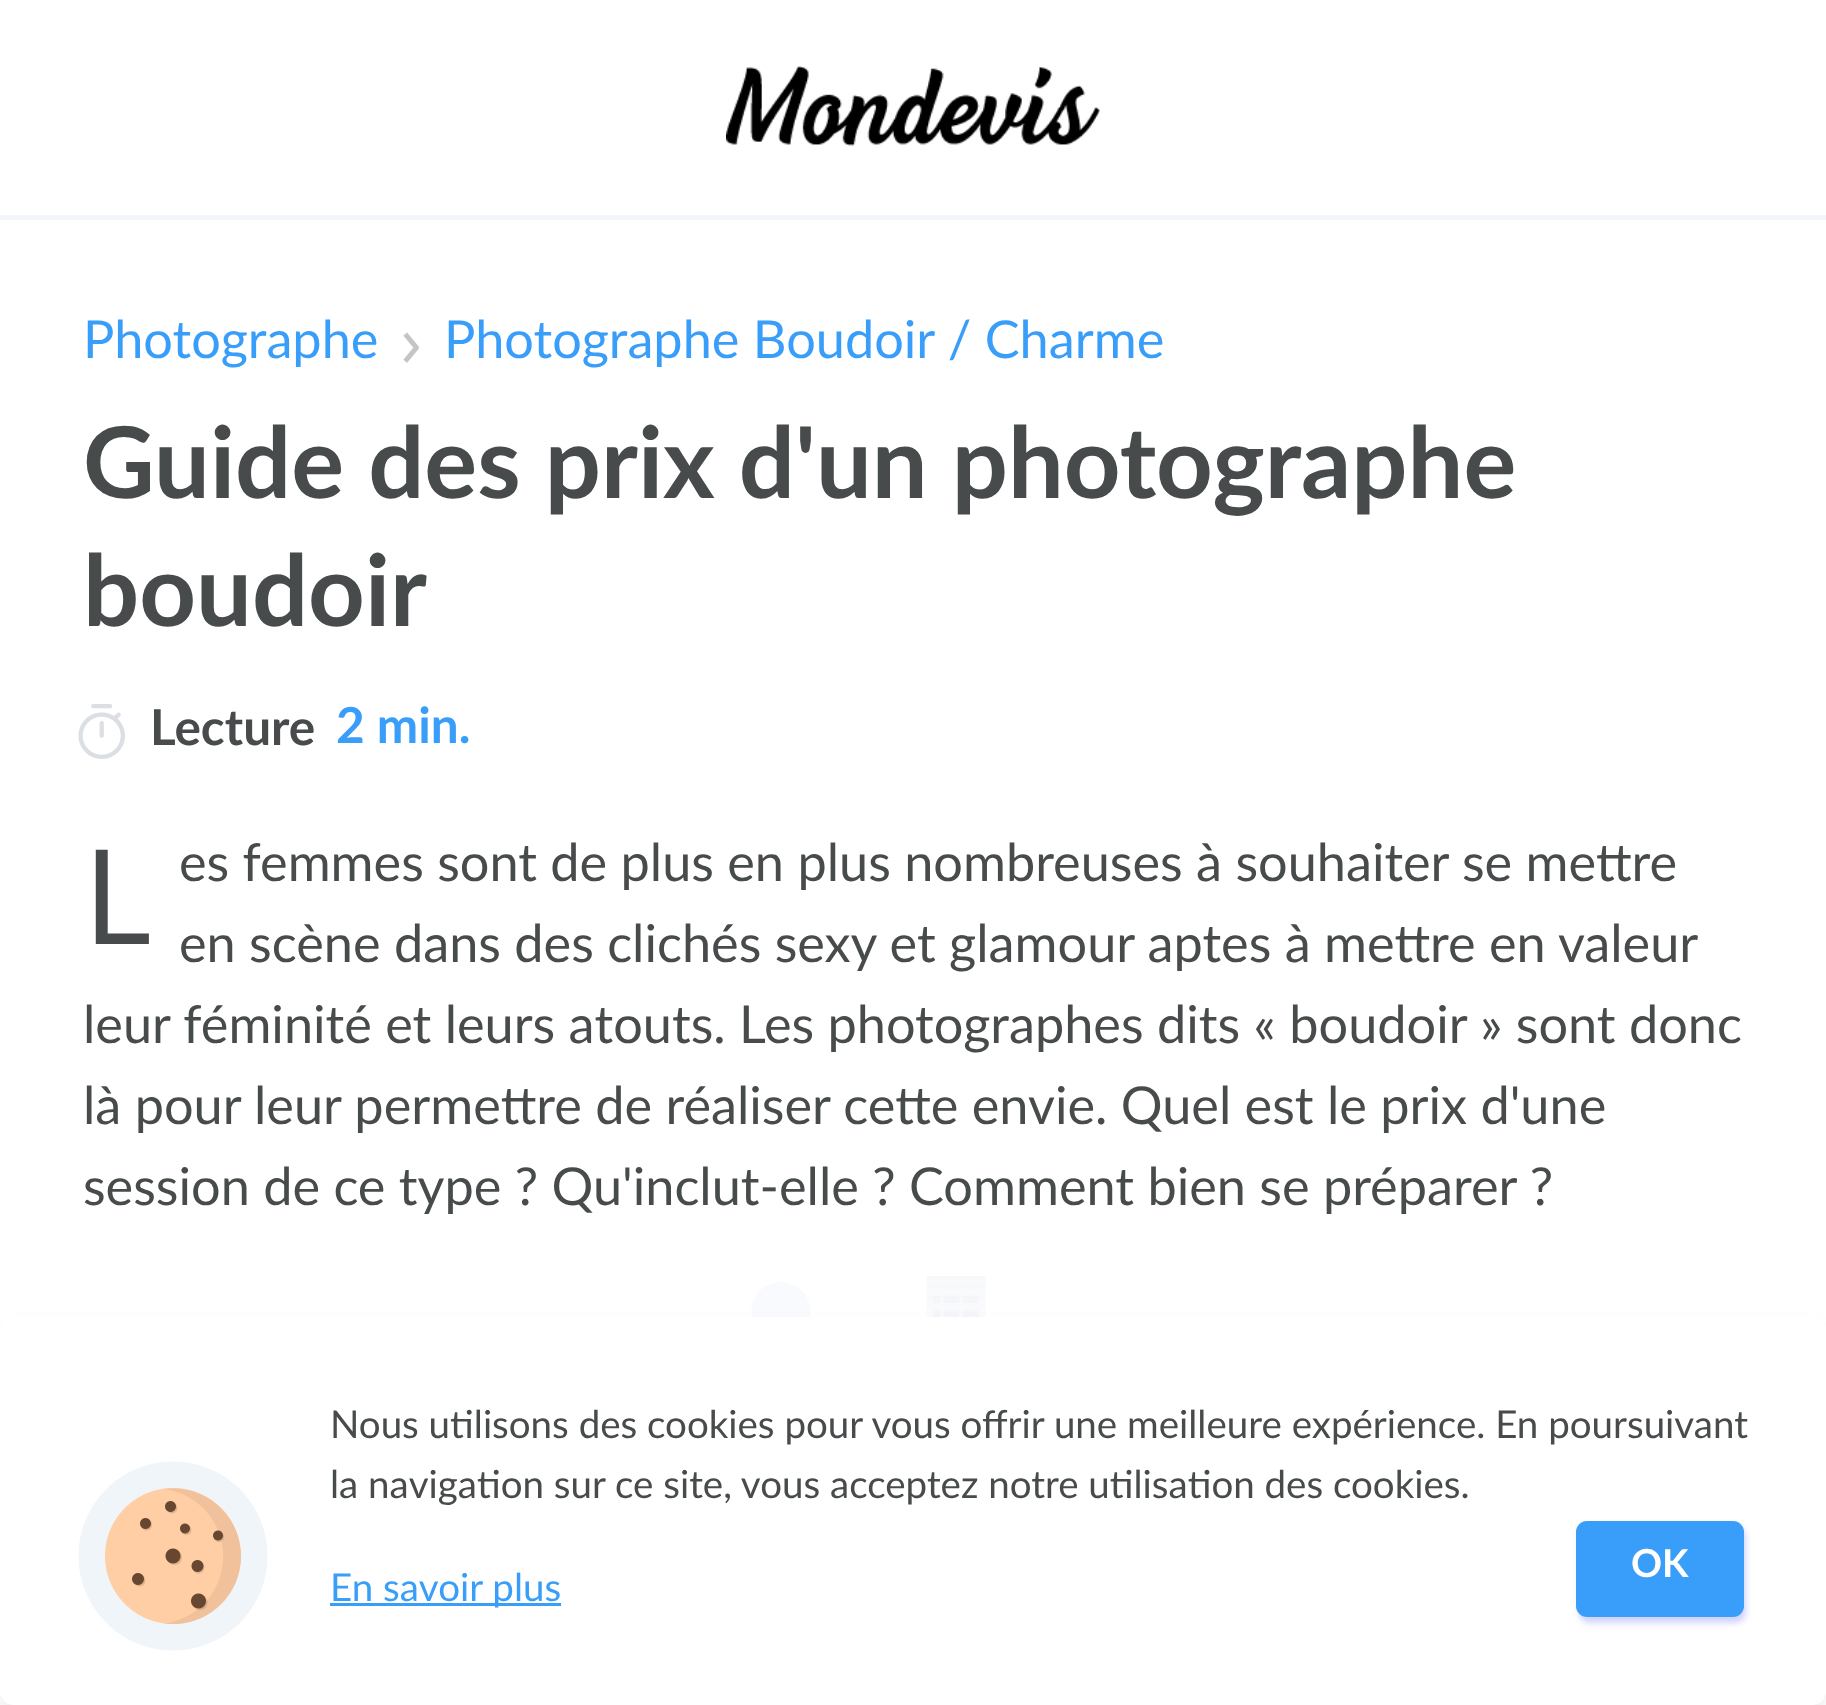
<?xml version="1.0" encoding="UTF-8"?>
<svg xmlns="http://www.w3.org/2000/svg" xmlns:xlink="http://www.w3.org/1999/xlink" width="1826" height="1705">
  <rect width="100%" height="100%" fill="#ffffff" />
  <rect y="215" width="1826" height="5" fill="#f2f5fa" />
  <image x="726" y="66" width="374" height="80" xlink:href="image1.png" />
  <image x="403" y="332" width="16" height="31" xlink:href="image2.png" />
  <image x="78" y="704" width="47" height="55" xlink:href="image3.png" />
  <image x="751" y="1276" width="235" height="41" xlink:href="image4.png" />
  <rect y="1331" width="1826" height="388" rx="14" fill="#000000" fill-opacity="0.07" filter="blur(10.5px)" />
  <rect y="1317" width="1826" height="388" rx="14" fill="#ffffff" />
  <image x="78" y="1461" width="190" height="190" xlink:href="image5.png" />
  <rect x="1579" y="1526" width="167" height="97" rx="11" fill="#d0d3fd" filter="blur(3px)" />
  <rect x="1576" y="1521" width="168" height="96" rx="11" fill="#399ef9" />
  <rect x="330" y="1603" width="231" height="3" fill="#399ef9" />
  <text x="83" y="358" style="font-family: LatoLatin; font-size: 52.25px; fill: #399ef9">Photographe</text>
  <text x="444" y="358" style="font-family: LatoLatin; font-size: 52.25px; fill: #399ef9">Photographe Boudoir / Charme</text>
  <text x="83" y="498" style="font-family: LatoLatin; font-size: 99px; font-weight: bold; fill: #484b4c">Guide des prix d'un photographe</text>
  <text x="83" y="626" style="font-family: LatoLatin; font-size: 99px; font-weight: bold; fill: #484b4c">boudoir</text>
  <text x="150" y="745" style="font-family: LatoLatin; font-size: 49.5px; font-weight: bold; fill: #484b4c">Lecture</text>
  <text x="336" y="743" style="font-family: LatoLatin; font-size: 49.5px; font-weight: bold; fill: #399ef9">2 min.</text>
  <text x="83" y="944" style="font-family: Noto Sans; font-size: 132px; fill: #484b4c">L</text>
  <text x="179" y="881" style="font-family: LatoLatin; font-size: 52.25px; fill: #484b4c">es femmes sont de plus en plus nombreuses à souhaiter se mettre</text>
  <text x="179" y="962" style="font-family: LatoLatin; font-size: 52.25px; fill: #484b4c">en scène dans des clichés sexy et glamour aptes à mettre en valeur</text>
  <text x="83" y="1043" style="font-family: LatoLatin; font-size: 52.25px; fill: #484b4c">leur féminité et leurs atouts. Les photographes dits « boudoir » sont donc</text>
  <text x="83" y="1124" style="font-family: LatoLatin; font-size: 52.25px; fill: #484b4c">là pour leur permettre de réaliser cette envie. Quel est le prix d'une</text>
  <text x="83" y="1205" style="font-family: LatoLatin; font-size: 52.25px; fill: #484b4c">session de ce type ? Qu'inclut-elle ? Comment bien se préparer ?</text>
  <text x="330" y="1438" style="font-family: LatoLatin; font-size: 38.5px; fill: #484b4c">Nous utilisons des cookies pour vous offrir une meilleure expérience. En poursuivant</text>
  <text x="330" y="1498" style="font-family: LatoLatin; font-size: 38.5px; fill: #484b4c">la navigation sur ce site, vous acceptez notre utilisation des cookies.</text>
  <text x="1631" y="1577" style="font-family: LatoLatin; font-size: 38.5px; font-weight: bold; fill: #ffffff">OK</text>
  <text x="330" y="1601" style="font-family: LatoLatin; font-size: 38.5px; fill: #399ef9">En savoir plus</text>
</svg>
